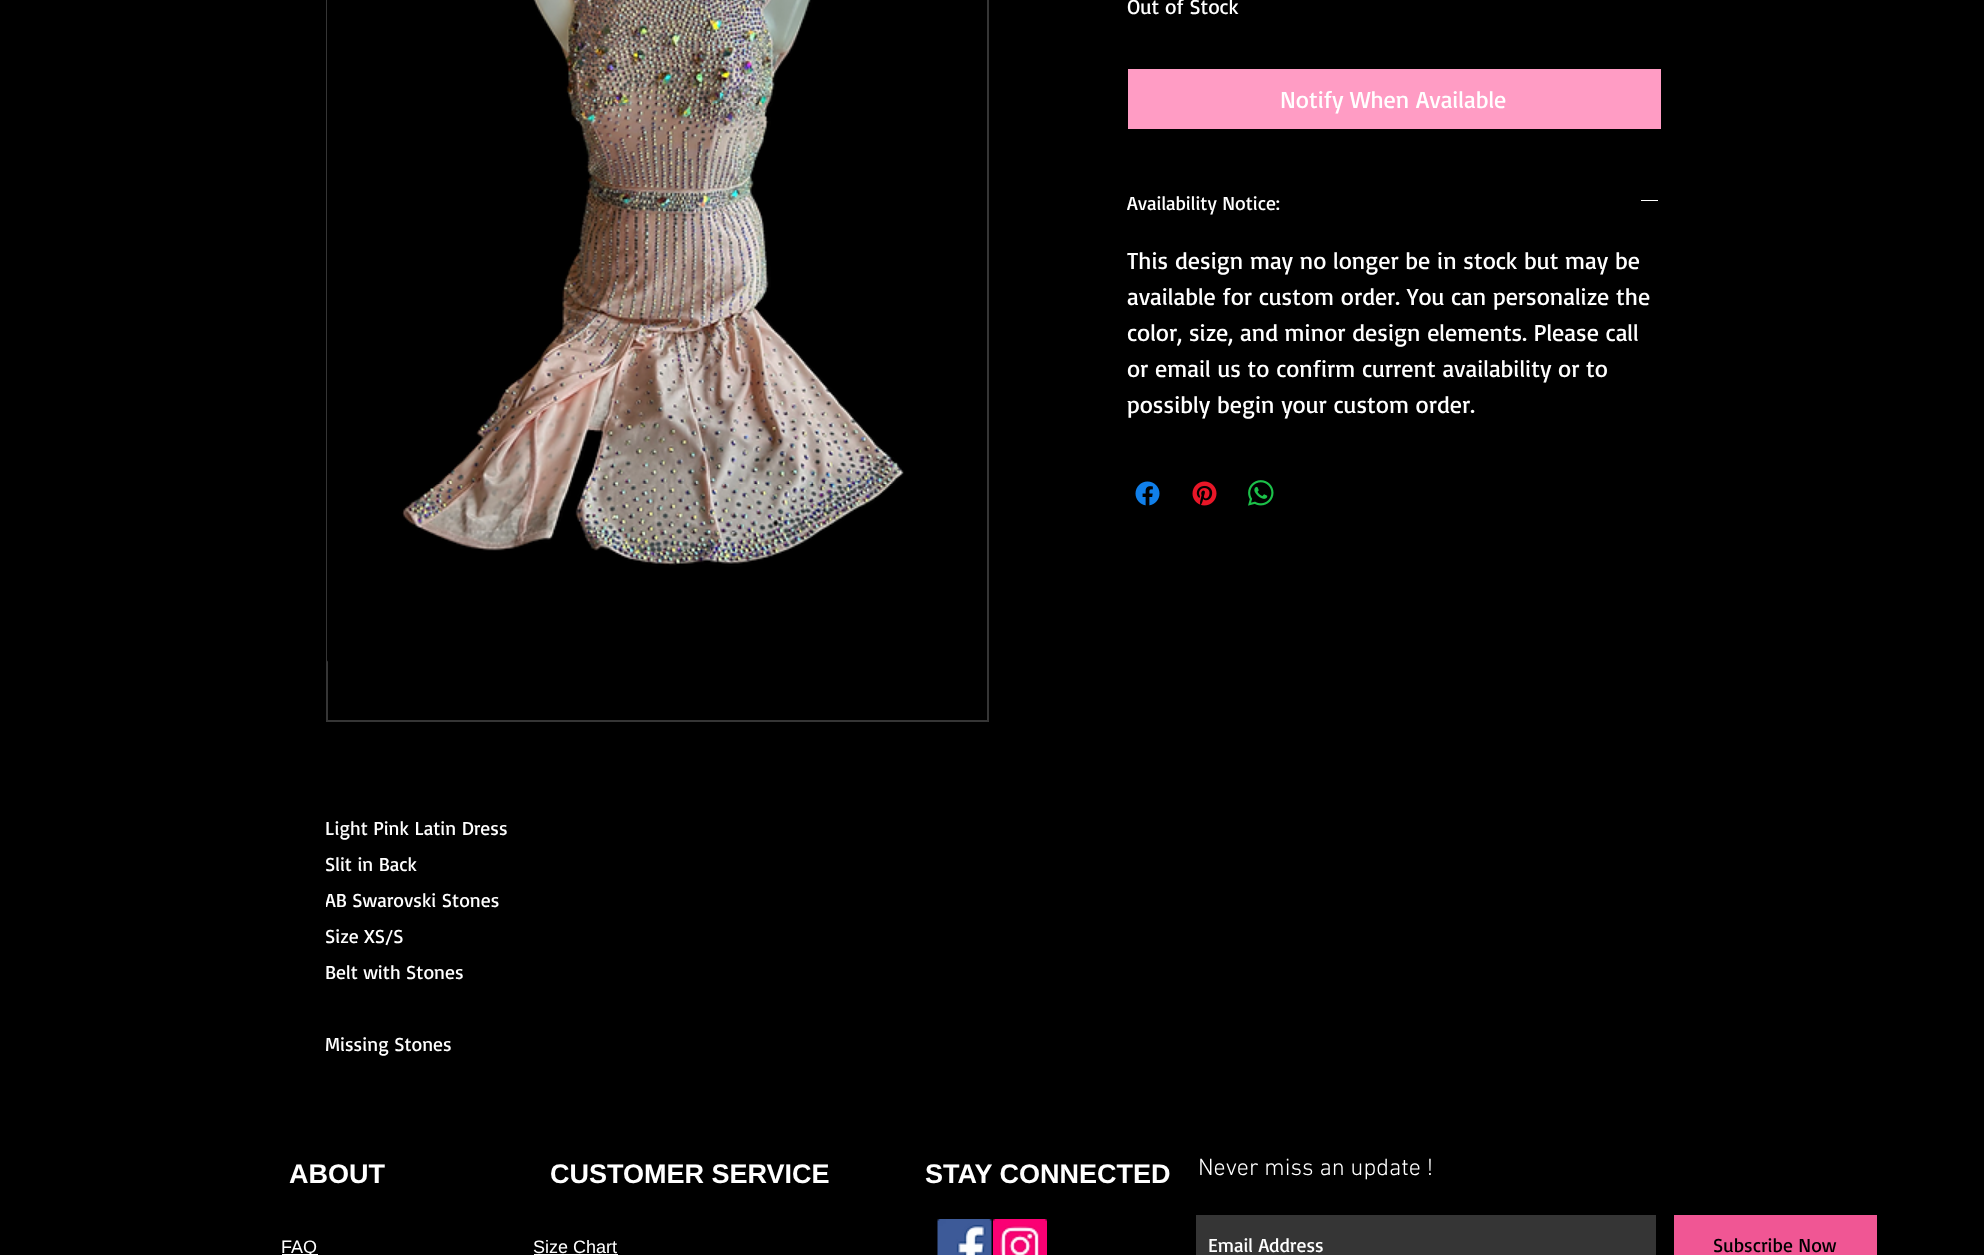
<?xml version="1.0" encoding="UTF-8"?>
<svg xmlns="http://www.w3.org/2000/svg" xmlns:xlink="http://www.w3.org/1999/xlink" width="1984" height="1255">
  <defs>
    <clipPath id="clip1"><rect x="326" y="809" width="181" height="252" /></clipPath>
  </defs>
  <rect width="100%" height="100%" fill="#000000" />
  <rect x="1128" y="69" width="533" height="60" fill="#ff9cc4" />
  <rect x="1641" y="200" width="17" height="1" fill="#ffffff" />
  <image x="1135" y="481" width="25" height="25" xlink:href="image1.png" />
  <image x="1192" y="481" width="25" height="25" xlink:href="image2.png" />
  <image x="1248" y="480" width="26" height="26" xlink:href="image3.png" />
  <rect x="327" y="-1" width="661" height="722" fill="none" stroke="#353535" stroke-width="2" />
  <image x="327" y="0" width="577" height="662" xlink:href="image4.png" />
  <rect x="1196" y="1215" width="460" height="40" fill="#353535" />
  <rect x="1674" y="1215" width="203" height="40" fill="#f05694" />
  <rect x="282" y="1254" width="36" height="1" fill="#ffffff" />
  <rect x="534" y="1254" width="84" height="1" fill="#ffffff" />
  <image x="937" y="1219" width="55" height="36" xlink:href="image5.png" />
  <image x="993" y="1219" width="54" height="36" xlink:href="image6.png" />
  <text x="1127" y="14" style="font-family: Basic; font-size: 21px; fill: #ffffff">Out of Stock</text>
  <text x="1280" y="108" style="font-family: Basic; font-size: 24px; fill: #ffffff">Notify When Available</text>
  <text x="1127" y="210" style="font-family: Basic; font-size: 19.5px; fill: #ffffff">Availability Notice:</text>
  <text x="1127" y="269" style="font-family: Basic; font-size: 24px; fill: #ffffff">This design may no longer be in stock but may be</text>
  <text x="1127" y="305" style="font-family: Basic; font-size: 24px; fill: #ffffff">available for custom order. You can personalize the</text>
  <text x="1127" y="341" style="font-family: Basic; font-size: 24px; fill: #ffffff">color, size, and minor design elements. Please call</text>
  <text x="1127" y="377" style="font-family: Basic; font-size: 24px; fill: #ffffff">or email us to confirm current availability or to</text>
  <text x="1127" y="413" style="font-family: Basic; font-size: 24px; fill: #ffffff">possibly begin your custom order.</text>
  <text x="325" y="835" style="font-family: Basic; font-size: 19.5px; fill: #ffffff">Light Pink Latin Dress</text>
  <text x="325" y="871" style="font-family: Basic; font-size: 19.5px; fill: #ffffff">Slit in Back</text>
  <g clip-path="url(#clip1)">
    <text x="325" y="907" style="font-family: Basic; font-size: 19.5px; fill: #ffffff">AB Swarovski Stones</text>
  </g>
  <text x="325" y="943" style="font-family: Basic; font-size: 19.5px; fill: #ffffff">Size XS/S</text>
  <text x="325" y="979" style="font-family: Basic; font-size: 19.5px; fill: #ffffff">Belt with Stones</text>
  <g clip-path="url(#clip1)">
    <text x="325" y="1051" style="font-family: Basic; font-size: 19.5px; fill: #ffffff">Missing Stones</text>
  </g>
  <text x="289" y="1183" style="font-family: Liberation Sans; font-size: 27px; font-weight: bold; fill: #ffffff">ABOUT</text>
  <text x="550" y="1183" style="font-family: Liberation Sans; font-size: 27px; font-weight: bold; fill: #ffffff">CUSTOMER SERVICE</text>
  <text x="925" y="1183" style="font-family: Liberation Sans; font-size: 27px; font-weight: bold; fill: #ffffff">STAY CONNECTED</text>
  <text x="1198" y="1175" style="font-family: 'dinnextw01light'; font-size: 24px; font-weight: 300; fill: #ffffff">Never miss an update !</text>
  <text x="1208" y="1252" style="font-family: Basic; font-size: 19.5px; fill: #ffffff">Email Address</text>
  <text x="1713" y="1252" style="font-family: Basic; font-size: 19.5px; fill: #000000">Subscribe Now</text>
  <text x="281" y="1253" style="font-family: Liberation Sans; font-size: 18px; fill: #ffffff">FAQ</text>
  <text x="533" y="1253" style="font-family: Liberation Sans; font-size: 18px; fill: #ffffff">Size Chart</text>
</svg>
